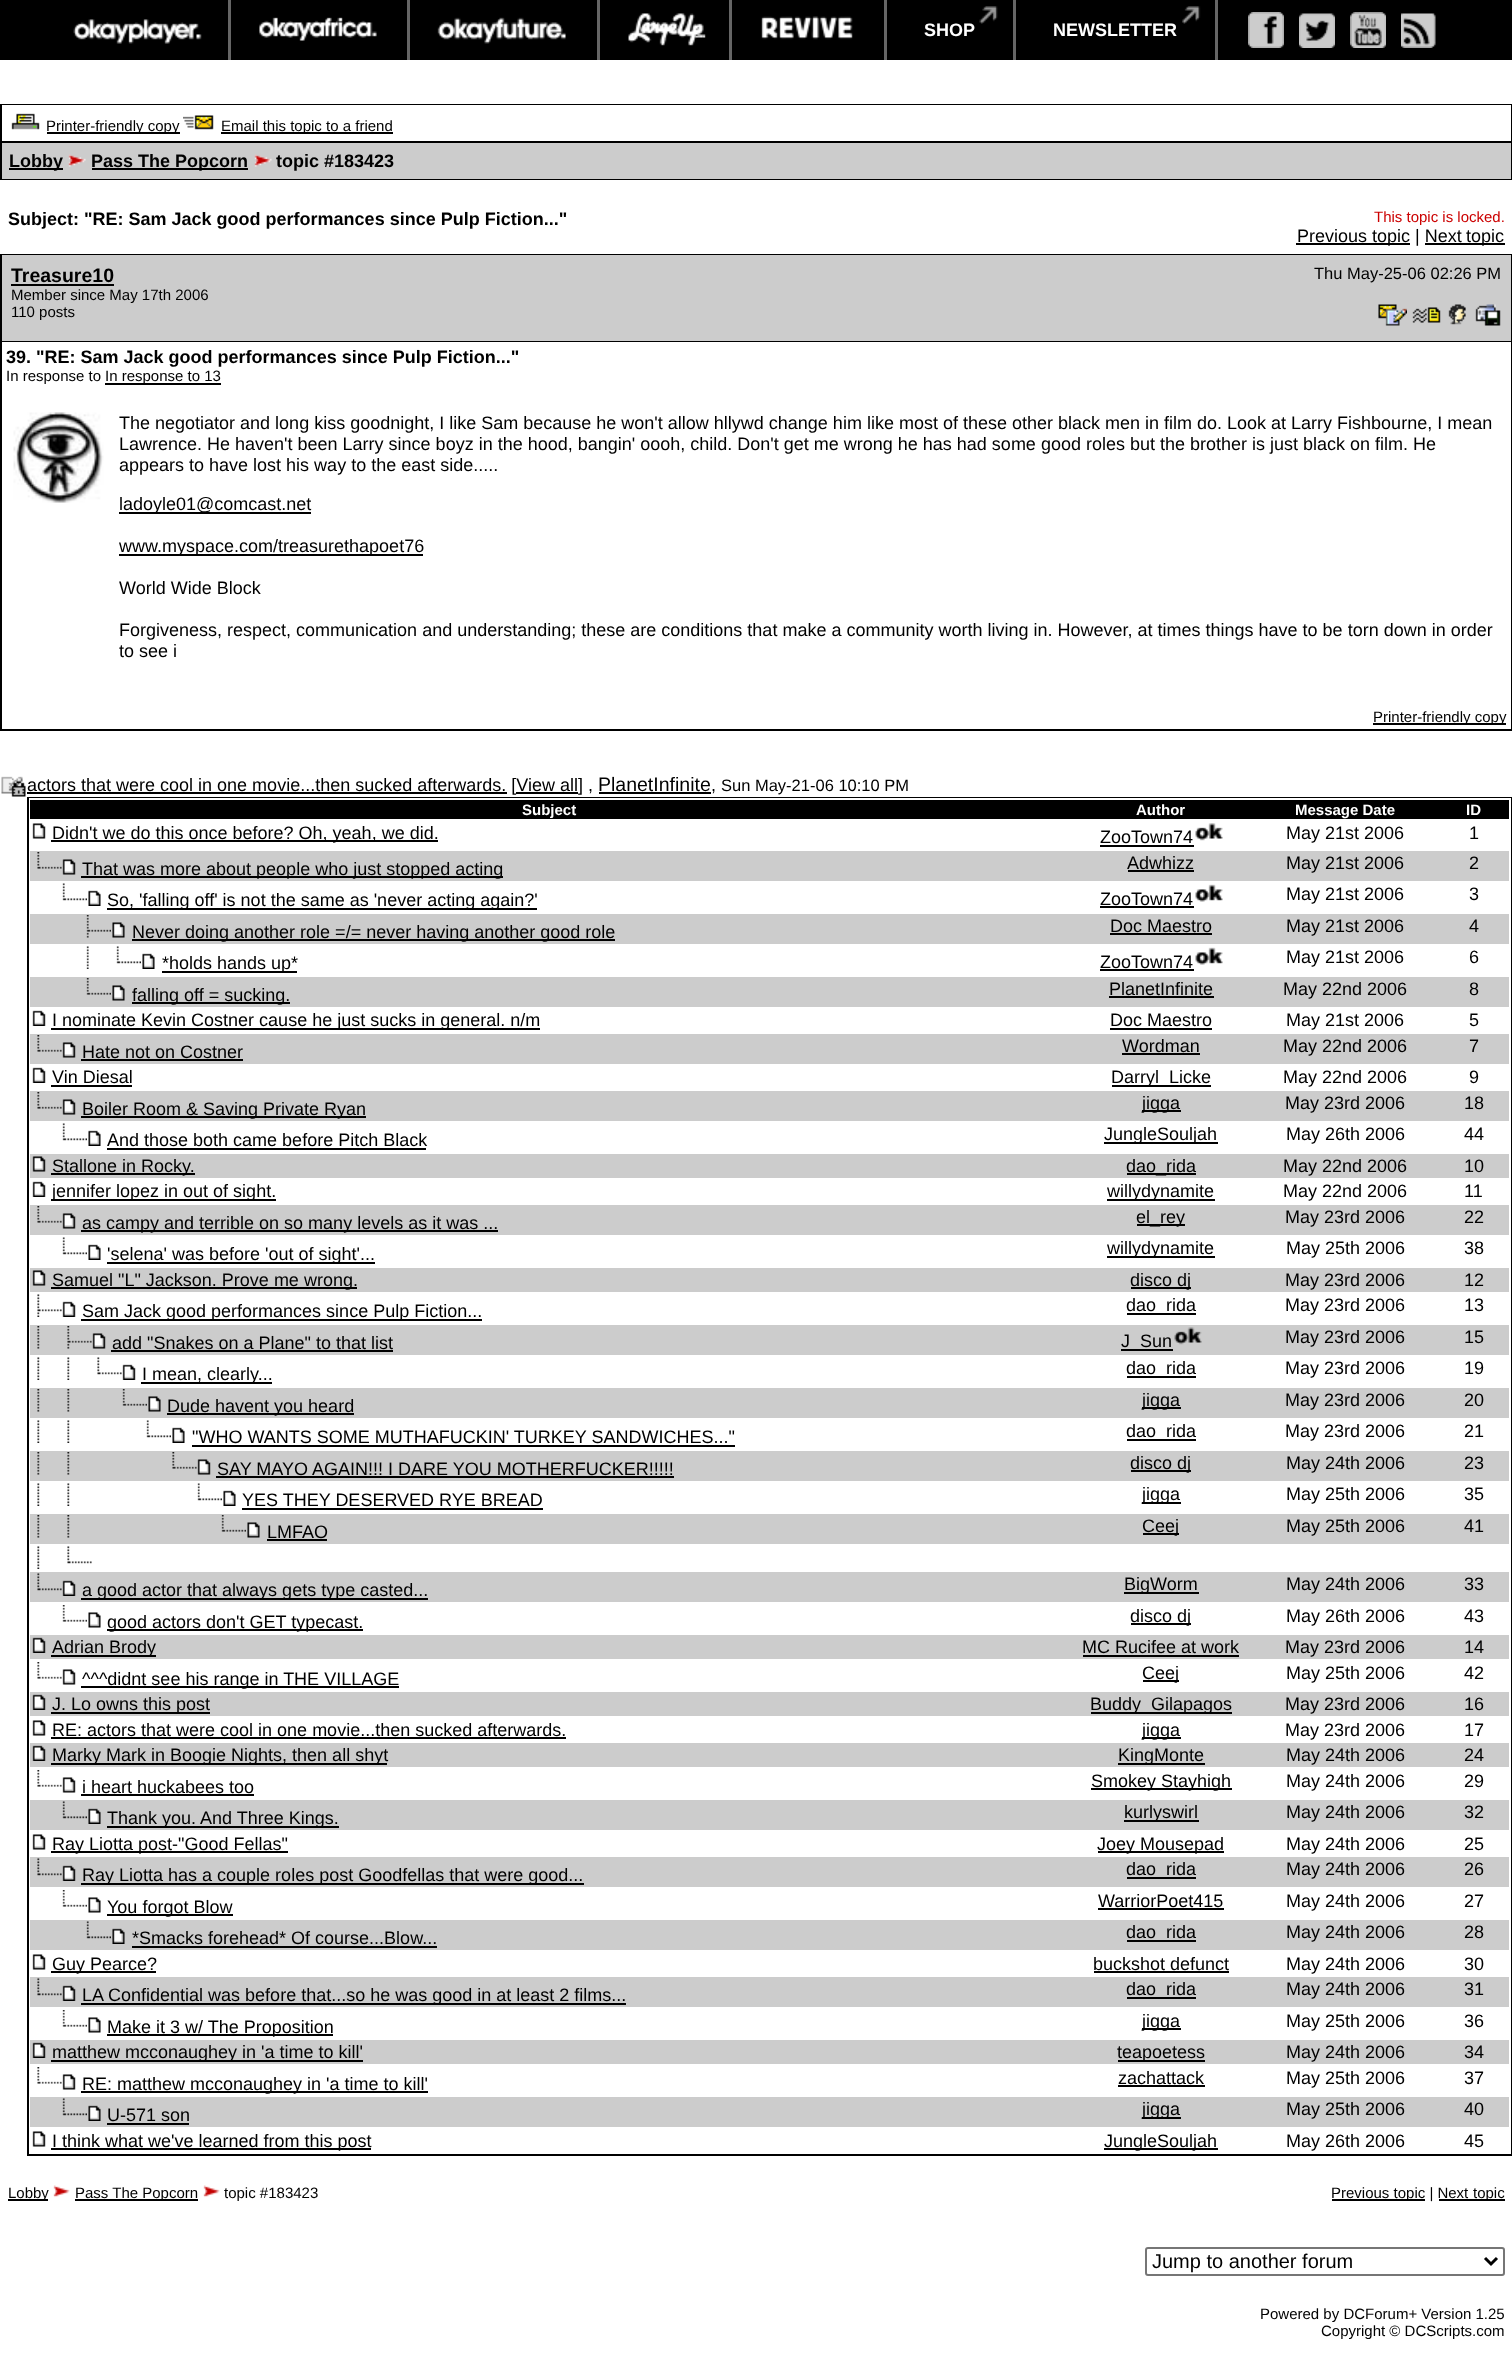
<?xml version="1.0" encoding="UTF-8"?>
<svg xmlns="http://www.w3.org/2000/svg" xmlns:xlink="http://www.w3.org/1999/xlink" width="1512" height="2370">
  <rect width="100%" height="100%" fill="#ffffff" />
  <rect width="1512" height="60" fill="#000000" />
  <rect x="228" width="3" height="60" fill="#666666" />
  <image x="73" y="19" width="129" height="25" xlink:href="image1.png" />
  <rect x="407" width="3" height="60" fill="#666666" />
  <image x="259" y="17" width="118" height="24" xlink:href="image2.png" />
  <rect x="597" width="3" height="60" fill="#666666" />
  <image x="437" y="17" width="129" height="27" xlink:href="image3.png" />
  <rect x="729" width="3" height="60" fill="#666666" />
  <image x="628" y="13" width="78" height="33" xlink:href="image4.png" />
  <rect x="884" width="3" height="60" fill="#666666" />
  <image x="761" y="16" width="92" height="24" xlink:href="image5.png" />
  <rect x="1013" width="3" height="60" fill="#666666" />
  <image x="979" y="6" width="19" height="18" xlink:href="image6.png" />
  <rect x="1215" width="3" height="60" fill="#666666" />
  <image x="1182" y="6" width="19" height="18" xlink:href="image7.png" />
  <image x="1248" y="12" width="36" height="36" xlink:href="image8.png" />
  <image x="1299" y="13" width="36" height="35" xlink:href="image9.png" />
  <image x="1350" y="12" width="36" height="36" xlink:href="image10.png" />
  <image x="1401" y="13" width="35" height="35" xlink:href="image11.png" />
  <rect y="104" width="1512" height="76" fill="#000000" />
  <rect x="2" y="105" width="1509" height="36" fill="#ffffff" />
  <image x="11" y="113" width="29" height="17" xlink:href="image12.png" />
  <rect x="47" y="132" width="133" height="2" fill="#000000" />
  <image x="183" y="115" width="31" height="15" xlink:href="image13.png" />
  <rect x="221" y="132" width="172" height="2" fill="#000000" />
  <rect x="2" y="143" width="1509" height="36" fill="#cccccc" />
  <rect x="9" y="168" width="54" height="2" fill="#000000" />
  <image x="68" y="154" width="18" height="13" xlink:href="image14.png" />
  <rect x="92" y="168" width="156" height="2" fill="#000000" />
  <image x="254" y="154" width="18" height="13" xlink:href="image14.png" />
  <rect x="1296" y="243" width="114" height="2" fill="#000000" />
  <rect x="1425" y="243" width="80" height="2" fill="#000000" />
  <rect y="254" width="1512" height="477" fill="#000000" />
  <rect x="2" y="255" width="1509" height="86" fill="#cccccc" />
  <rect x="11" y="284" width="103" height="2" fill="#000000" />
  <image x="1378" y="304" width="29" height="22" xlink:href="image15.png" />
  <image x="1412" y="307" width="29" height="16" xlink:href="image16.png" />
  <image x="1448" y="304" width="18" height="21" xlink:href="image17.png" />
  <image x="1475" y="304" width="26" height="22" xlink:href="image18.png" />
  <rect x="2" y="342" width="1509" height="387" fill="#ffffff" />
  <rect x="105" y="383" width="116" height="2" fill="#000000" />
  <image x="13" y="412" width="91" height="91" xlink:href="image19.png" />
  <rect x="119" y="512" width="192" height="2" fill="#000000" />
  <rect x="119" y="554" width="304" height="2" fill="#000000" />
  <rect x="1373" y="723" width="133" height="2" fill="#000000" />
  <image x="1" y="776" width="25" height="21" xlink:href="image20.png" />
  <rect x="27" y="792" width="480" height="2" fill="#000000" />
  <rect x="516" y="792" width="62" height="2" fill="#000000" />
  <rect x="599" y="792" width="112" height="2" fill="#000000" />
  <rect x="27" y="797" width="1485" height="1359" fill="#000000" />
  <rect x="29" y="798" width="1482" height="1356" fill="#ffffff" />
  <rect x="30" y="800" width="1479" height="19" fill="#000000" />
  <image x="32" y="823" width="14" height="16" xlink:href="image21.png" />
  <rect x="51" y="840" width="387" height="2" fill="#000000" />
  <rect x="1100" y="845" width="94" height="2" fill="#000000" />
  <image x="1195" y="823" width="28" height="18" xlink:href="image22.png" />
  <rect x="30" y="851" width="1479" height="30" fill="#cccccc" />
  <image x="37" y="852" width="25" height="17" xlink:href="image23.png" />
  <image x="62" y="859" width="14" height="16" xlink:href="image24.png" />
  <rect x="81" y="876" width="422" height="2" fill="#000000" />
  <rect x="1128" y="870" width="66" height="2" fill="#000000" />
  <image x="62" y="883" width="25" height="18" xlink:href="image25.png" />
  <image x="88" y="890" width="13" height="16" xlink:href="image26.png" />
  <rect x="107" y="908" width="430" height="2" fill="#000000" />
  <rect x="1100" y="906" width="94" height="2" fill="#000000" />
  <image x="1195" y="884" width="28" height="18" xlink:href="image27.png" />
  <rect x="30" y="914" width="1479" height="30" fill="#cccccc" />
  <image x="86" y="915" width="25" height="23" xlink:href="image28.png" />
  <image x="112" y="922" width="13" height="16" xlink:href="image29.png" />
  <rect x="132" y="939" width="483" height="2" fill="#000000" />
  <rect x="1110" y="933" width="102" height="2" fill="#000000" />
  <image x="86" y="946" width="3" height="23" xlink:href="image30.png" />
  <image x="116" y="946" width="25" height="18" xlink:href="image25.png" />
  <image x="142" y="953" width="13" height="16" xlink:href="image26.png" />
  <rect x="162" y="971" width="135" height="2" fill="#000000" />
  <rect x="1100" y="969" width="94" height="2" fill="#000000" />
  <image x="1195" y="947" width="28" height="18" xlink:href="image27.png" />
  <rect x="30" y="977" width="1479" height="30" fill="#cccccc" />
  <image x="86" y="978" width="25" height="17" xlink:href="image31.png" />
  <image x="112" y="985" width="13" height="16" xlink:href="image29.png" />
  <rect x="132" y="1002" width="158" height="2" fill="#000000" />
  <rect x="1109" y="996" width="105" height="2" fill="#000000" />
  <image x="32" y="1010" width="14" height="16" xlink:href="image32.png" />
  <rect x="51" y="1028" width="489" height="2" fill="#000000" />
  <rect x="1110" y="1028" width="102" height="2" fill="#000000" />
  <rect x="30" y="1034" width="1479" height="30" fill="#cccccc" />
  <image x="37" y="1035" width="25" height="17" xlink:href="image23.png" />
  <image x="62" y="1042" width="14" height="16" xlink:href="image24.png" />
  <rect x="81" y="1059" width="162" height="2" fill="#000000" />
  <rect x="1122" y="1053" width="78" height="2" fill="#000000" />
  <image x="32" y="1067" width="14" height="16" xlink:href="image32.png" />
  <rect x="51" y="1085" width="81" height="2" fill="#000000" />
  <rect x="1112" y="1085" width="99" height="2" fill="#000000" />
  <rect x="30" y="1091" width="1479" height="30" fill="#cccccc" />
  <image x="37" y="1092" width="25" height="17" xlink:href="image23.png" />
  <image x="62" y="1099" width="14" height="16" xlink:href="image24.png" />
  <rect x="81" y="1116" width="285" height="2" fill="#000000" />
  <rect x="1142" y="1110" width="39" height="2" fill="#000000" />
  <image x="62" y="1123" width="25" height="18" xlink:href="image25.png" />
  <image x="88" y="1130" width="13" height="16" xlink:href="image26.png" />
  <rect x="107" y="1148" width="319" height="2" fill="#000000" />
  <rect x="1104" y="1142" width="114" height="2" fill="#000000" />
  <rect x="30" y="1154" width="1479" height="24" fill="#cccccc" />
  <image x="32" y="1156" width="14" height="16" xlink:href="image24.png" />
  <rect x="51" y="1173" width="144" height="2" fill="#000000" />
  <rect x="1127" y="1173" width="69" height="2" fill="#000000" />
  <image x="32" y="1181" width="14" height="16" xlink:href="image32.png" />
  <rect x="51" y="1199" width="225" height="2" fill="#000000" />
  <rect x="1107" y="1199" width="108" height="2" fill="#000000" />
  <rect x="30" y="1205" width="1479" height="30" fill="#cccccc" />
  <image x="37" y="1206" width="25" height="17" xlink:href="image23.png" />
  <image x="62" y="1213" width="14" height="16" xlink:href="image24.png" />
  <rect x="81" y="1230" width="417" height="2" fill="#000000" />
  <rect x="1137" y="1224" width="48" height="2" fill="#000000" />
  <image x="62" y="1237" width="25" height="18" xlink:href="image25.png" />
  <image x="88" y="1244" width="13" height="16" xlink:href="image26.png" />
  <rect x="107" y="1262" width="268" height="2" fill="#000000" />
  <rect x="1107" y="1256" width="108" height="2" fill="#000000" />
  <rect x="30" y="1268" width="1479" height="24" fill="#cccccc" />
  <image x="32" y="1270" width="14" height="16" xlink:href="image24.png" />
  <rect x="51" y="1287" width="306" height="2" fill="#000000" />
  <rect x="1131" y="1287" width="60" height="2" fill="#000000" />
  <image x="37" y="1294" width="25" height="23" xlink:href="image33.png" />
  <image x="62" y="1301" width="14" height="16" xlink:href="image32.png" />
  <rect x="81" y="1319" width="401" height="2" fill="#000000" />
  <rect x="1127" y="1313" width="69" height="2" fill="#000000" />
  <rect x="30" y="1325" width="1479" height="30" fill="#cccccc" />
  <image x="37" y="1326" width="3" height="23" xlink:href="image34.png" />
  <image x="67" y="1326" width="25" height="23" xlink:href="image35.png" />
  <image x="92" y="1333" width="14" height="16" xlink:href="image24.png" />
  <rect x="111" y="1350" width="282" height="2" fill="#000000" />
  <rect x="1121" y="1349" width="52" height="2" fill="#000000" />
  <image x="1174" y="1327" width="28" height="18" xlink:href="image36.png" />
  <image x="37" y="1357" width="3" height="23" xlink:href="image37.png" />
  <image x="67" y="1357" width="3" height="23" xlink:href="image37.png" />
  <image x="97" y="1357" width="25" height="18" xlink:href="image38.png" />
  <image x="122" y="1364" width="14" height="16" xlink:href="image32.png" />
  <rect x="141" y="1382" width="131" height="2" fill="#000000" />
  <rect x="1127" y="1376" width="69" height="2" fill="#000000" />
  <rect x="30" y="1388" width="1479" height="30" fill="#cccccc" />
  <image x="37" y="1389" width="3" height="23" xlink:href="image34.png" />
  <image x="67" y="1389" width="3" height="23" xlink:href="image34.png" />
  <image x="122" y="1389" width="25" height="17" xlink:href="image31.png" />
  <image x="148" y="1396" width="13" height="16" xlink:href="image29.png" />
  <rect x="167" y="1413" width="187" height="2" fill="#000000" />
  <rect x="1142" y="1407" width="39" height="2" fill="#000000" />
  <image x="37" y="1420" width="3" height="23" xlink:href="image37.png" />
  <image x="67" y="1420" width="3" height="23" xlink:href="image37.png" />
  <image x="146" y="1420" width="25" height="18" xlink:href="image25.png" />
  <image x="172" y="1427" width="13" height="16" xlink:href="image26.png" />
  <rect x="192" y="1445" width="543" height="2" fill="#000000" />
  <rect x="1127" y="1439" width="69" height="2" fill="#000000" />
  <rect x="30" y="1451" width="1479" height="30" fill="#cccccc" />
  <image x="37" y="1452" width="3" height="23" xlink:href="image34.png" />
  <image x="67" y="1452" width="3" height="23" xlink:href="image34.png" />
  <image x="172" y="1452" width="25" height="17" xlink:href="image23.png" />
  <image x="197" y="1459" width="14" height="16" xlink:href="image24.png" />
  <rect x="216" y="1476" width="458" height="2" fill="#000000" />
  <rect x="1131" y="1470" width="60" height="2" fill="#000000" />
  <image x="37" y="1483" width="3" height="23" xlink:href="image37.png" />
  <image x="67" y="1483" width="3" height="23" xlink:href="image37.png" />
  <image x="197" y="1483" width="25" height="18" xlink:href="image25.png" />
  <image x="223" y="1490" width="13" height="16" xlink:href="image26.png" />
  <rect x="242" y="1508" width="301" height="2" fill="#000000" />
  <rect x="1142" y="1502" width="39" height="2" fill="#000000" />
  <rect x="30" y="1514" width="1479" height="30" fill="#cccccc" />
  <image x="37" y="1515" width="3" height="23" xlink:href="image34.png" />
  <image x="67" y="1515" width="3" height="23" xlink:href="image34.png" />
  <image x="221" y="1515" width="25" height="17" xlink:href="image31.png" />
  <image x="247" y="1522" width="13" height="16" xlink:href="image29.png" />
  <rect x="267" y="1539" width="60" height="2" fill="#000000" />
  <rect x="1143" y="1533" width="36" height="2" fill="#000000" />
  <image x="37" y="1546" width="3" height="23" xlink:href="image37.png" />
  <image x="67" y="1546" width="25" height="18" xlink:href="image38.png" />
  <rect x="30" y="1572" width="1479" height="30" fill="#cccccc" />
  <image x="37" y="1573" width="25" height="18" xlink:href="image39.png" />
  <image x="62" y="1580" width="14" height="16" xlink:href="image40.png" />
  <rect x="81" y="1598" width="347" height="2" fill="#000000" />
  <rect x="1124" y="1592" width="75" height="2" fill="#000000" />
  <image x="62" y="1605" width="25" height="17" xlink:href="image41.png" />
  <image x="88" y="1612" width="13" height="16" xlink:href="image42.png" />
  <rect x="107" y="1629" width="256" height="2" fill="#000000" />
  <rect x="1131" y="1623" width="60" height="2" fill="#000000" />
  <rect x="30" y="1635" width="1479" height="24" fill="#cccccc" />
  <image x="32" y="1637" width="14" height="16" xlink:href="image40.png" />
  <rect x="51" y="1655" width="105" height="2" fill="#000000" />
  <rect x="1083" y="1655" width="156" height="2" fill="#000000" />
  <image x="37" y="1662" width="25" height="17" xlink:href="image43.png" />
  <image x="62" y="1669" width="14" height="16" xlink:href="image21.png" />
  <rect x="81" y="1686" width="318" height="2" fill="#000000" />
  <rect x="1143" y="1680" width="36" height="2" fill="#000000" />
  <rect x="30" y="1692" width="1479" height="24" fill="#cccccc" />
  <image x="32" y="1694" width="14" height="16" xlink:href="image40.png" />
  <rect x="51" y="1712" width="159" height="2" fill="#000000" />
  <rect x="1091" y="1712" width="141" height="2" fill="#000000" />
  <image x="32" y="1720" width="14" height="16" xlink:href="image21.png" />
  <rect x="51" y="1737" width="515" height="2" fill="#000000" />
  <rect x="1142" y="1737" width="39" height="2" fill="#000000" />
  <rect x="30" y="1743" width="1479" height="24" fill="#cccccc" />
  <image x="32" y="1745" width="14" height="16" xlink:href="image40.png" />
  <rect x="51" y="1763" width="336" height="2" fill="#000000" />
  <rect x="1118" y="1763" width="87" height="2" fill="#000000" />
  <image x="37" y="1770" width="25" height="17" xlink:href="image43.png" />
  <image x="62" y="1777" width="14" height="16" xlink:href="image21.png" />
  <rect x="81" y="1794" width="173" height="2" fill="#000000" />
  <rect x="1091" y="1788" width="141" height="2" fill="#000000" />
  <rect x="30" y="1800" width="1479" height="30" fill="#cccccc" />
  <image x="62" y="1801" width="25" height="18" xlink:href="image44.png" />
  <image x="88" y="1808" width="13" height="16" xlink:href="image45.png" />
  <rect x="107" y="1826" width="232" height="2" fill="#000000" />
  <rect x="1124" y="1820" width="75" height="2" fill="#000000" />
  <image x="32" y="1834" width="14" height="16" xlink:href="image21.png" />
  <rect x="51" y="1851" width="237" height="2" fill="#000000" />
  <rect x="1098" y="1851" width="126" height="2" fill="#000000" />
  <rect x="30" y="1857" width="1479" height="30" fill="#cccccc" />
  <image x="37" y="1858" width="25" height="18" xlink:href="image39.png" />
  <image x="62" y="1865" width="14" height="16" xlink:href="image40.png" />
  <rect x="81" y="1883" width="503" height="2" fill="#000000" />
  <rect x="1127" y="1877" width="69" height="2" fill="#000000" />
  <image x="62" y="1890" width="25" height="17" xlink:href="image41.png" />
  <image x="88" y="1897" width="13" height="16" xlink:href="image42.png" />
  <rect x="107" y="1914" width="126" height="2" fill="#000000" />
  <rect x="1098" y="1908" width="126" height="2" fill="#000000" />
  <rect x="30" y="1920" width="1479" height="30" fill="#cccccc" />
  <image x="86" y="1921" width="25" height="18" xlink:href="image44.png" />
  <image x="112" y="1928" width="13" height="16" xlink:href="image45.png" />
  <rect x="132" y="1946" width="305" height="2" fill="#000000" />
  <rect x="1127" y="1940" width="69" height="2" fill="#000000" />
  <image x="32" y="1954" width="14" height="16" xlink:href="image21.png" />
  <rect x="51" y="1971" width="105" height="2" fill="#000000" />
  <rect x="1094" y="1971" width="135" height="2" fill="#000000" />
  <rect x="30" y="1977" width="1479" height="30" fill="#cccccc" />
  <image x="37" y="1978" width="25" height="18" xlink:href="image39.png" />
  <image x="62" y="1985" width="14" height="16" xlink:href="image40.png" />
  <rect x="81" y="2003" width="545" height="2" fill="#000000" />
  <rect x="1127" y="1997" width="69" height="2" fill="#000000" />
  <image x="62" y="2010" width="25" height="17" xlink:href="image41.png" />
  <image x="88" y="2017" width="13" height="16" xlink:href="image42.png" />
  <rect x="107" y="2034" width="226" height="2" fill="#000000" />
  <rect x="1142" y="2028" width="39" height="2" fill="#000000" />
  <rect x="30" y="2040" width="1479" height="24" fill="#cccccc" />
  <image x="32" y="2042" width="14" height="16" xlink:href="image40.png" />
  <rect x="51" y="2060" width="312" height="2" fill="#000000" />
  <rect x="1118" y="2060" width="87" height="2" fill="#000000" />
  <image x="37" y="2067" width="25" height="17" xlink:href="image43.png" />
  <image x="62" y="2074" width="14" height="16" xlink:href="image21.png" />
  <rect x="81" y="2091" width="347" height="2" fill="#000000" />
  <rect x="1118" y="2085" width="87" height="2" fill="#000000" />
  <rect x="30" y="2097" width="1479" height="30" fill="#cccccc" />
  <image x="62" y="2098" width="25" height="18" xlink:href="image44.png" />
  <image x="88" y="2105" width="13" height="16" xlink:href="image45.png" />
  <rect x="107" y="2123" width="82" height="2" fill="#000000" />
  <rect x="1142" y="2117" width="39" height="2" fill="#000000" />
  <image x="32" y="2131" width="14" height="16" xlink:href="image21.png" />
  <rect x="51" y="2148" width="320" height="2" fill="#000000" />
  <rect x="1104" y="2148" width="114" height="2" fill="#000000" />
  <rect x="8" y="2199" width="40" height="2" fill="#000000" />
  <image x="53" y="2185" width="17" height="13" xlink:href="image46.png" />
  <rect x="75" y="2199" width="123" height="2" fill="#000000" />
  <image x="203" y="2185" width="17" height="13" xlink:href="image46.png" />
  <rect x="1332" y="2199" width="93" height="2" fill="#000000" />
  <rect x="1439" y="2199" width="66" height="2" fill="#000000" />
  <rect x="1146" y="2248" width="358" height="27" rx="2" fill="none" stroke="#767676" stroke-width="2" />
  <path d="M 1485 2258 l 6 6 l 6 -6" fill="none" stroke="#000000" stroke-width="3" />
  <text x="924" y="36" style="font-family: Liberation Sans; font-size: 18px; font-weight: bold; fill: #ffffff">SHOP</text>
  <text x="1053" y="36" style="font-family: Liberation Sans; font-size: 18px; font-weight: bold; fill: #ffffff">NEWSLETTER</text>
  <text x="46" y="131" style="font-family: Liberation Sans; font-size: 15px; fill: #000000">Printer-friendly copy</text>
  <text x="221" y="131" style="font-family: Liberation Sans; font-size: 15px; fill: #000000">Email this topic to a friend</text>
  <text x="9" y="167" style="font-family: Liberation Sans; font-size: 18px; font-weight: bold; fill: #000000">Lobby</text>
  <text x="91" y="167" style="font-family: Liberation Sans; font-size: 18px; font-weight: bold; fill: #000000">Pass The Popcorn</text>
  <text x="276" y="167" style="font-family: Liberation Sans; font-size: 18px; font-weight: bold; fill: #000000">topic #183423</text>
  <text x="8" y="225" style="font-family: Liberation Sans; font-size: 18px; font-weight: bold; fill: #000000">Subject: "RE: Sam Jack good performances since Pulp Fiction..."</text>
  <text x="1374" y="222" style="font-family: Liberation Sans; font-size: 15px; fill: #cc0000">This topic is locked.</text>
  <text x="1297" y="242" style="font-family: Liberation Sans; font-size: 18px; fill: #000000">Previous topic | Next</text>
  <text x="1466" y="242" style="font-family: Liberation Sans; font-size: 18px; fill: #000000">topic</text>
  <text x="11" y="282" style="font-family: Liberation Sans; font-size: 19.5px; font-weight: bold; fill: #000000">Treasure10</text>
  <text x="11" y="300" style="font-family: Liberation Sans; font-size: 15px; fill: #000000">Member since May 17th 2006</text>
  <text x="11" y="317" style="font-family: Liberation Sans; font-size: 15px; fill: #000000">110 posts</text>
  <text x="1314" y="279" style="font-family: Liberation Sans; font-size: 16.5px; fill: #000000">Thu May-25-06 02:26 PM</text>
  <text x="6" y="363" style="font-family: Liberation Sans; font-size: 18px; font-weight: bold; fill: #000000">39. "RE: Sam Jack good performances since Pulp Fiction..."</text>
  <text x="6" y="381" style="font-family: Liberation Sans; font-size: 15px; fill: #000000">In response to</text>
  <text x="105" y="381" style="font-family: Liberation Sans; font-size: 15px; fill: #000000">In response to 13</text>
  <text x="119" y="429" style="font-family: Liberation Sans; font-size: 18px; fill: #000000">The negotiator and long kiss goodnight, I like Sam because he won't allow hllywd change him like most of these other black men in film do. Look at Larry Fishbourne, I mean</text>
  <text x="119" y="450" style="font-family: Liberation Sans; font-size: 18px; fill: #000000">Lawrence. He haven't been Larry since boyz in the hood, bangin' oooh, child. Don't get me wrong he has had some good roles but the brother is just black on film. He</text>
  <text x="119" y="471" style="font-family: Liberation Sans; font-size: 18px; fill: #000000">appears to have lost his way to the east side.....</text>
  <text x="119" y="510" style="font-family: Liberation Sans; font-size: 18px; fill: #000000">ladoyle01@comcast.net</text>
  <text x="119" y="552" style="font-family: Liberation Sans; font-size: 18px; fill: #000000">www.myspace.com/treasurethapoet76</text>
  <text x="119" y="594" style="font-family: Liberation Sans; font-size: 18px; fill: #000000">World Wide Block</text>
  <text x="119" y="636" style="font-family: Liberation Sans; font-size: 18px; fill: #000000">Forgiveness, respect, communication and understanding; these are conditions that make a community worth living in. However, at times things have to be torn down in order</text>
  <text x="119" y="657" style="font-family: Liberation Sans; font-size: 18px; fill: #000000">to see i</text>
  <text x="1373" y="722" style="font-family: Liberation Sans; font-size: 15px; fill: #000000">Printer-friendly copy</text>
  <text x="27" y="791" style="font-family: Liberation Sans; font-size: 18px; fill: #000000">actors that were cool in one movie...then sucked afterwards. [View all] ,</text>
  <text x="598" y="791" style="font-family: Liberation Sans; font-size: 19.5px; fill: #000000">PlanetInfinite</text>
  <text x="711" y="791" style="font-family: Liberation Sans; font-size: 18px; fill: #000000">,</text>
  <text x="721" y="791" style="font-family: Liberation Sans; font-size: 16.5px; fill: #000000">Sun May-21-06 10:10 PM</text>
  <text x="522" y="815" style="font-family: Liberation Sans; font-size: 15px; font-weight: bold; fill: #ffffff">Subject</text>
  <text x="1136" y="815" style="font-family: Liberation Sans; font-size: 15px; font-weight: bold; fill: #ffffff">Author</text>
  <text x="1295" y="815" style="font-family: Liberation Sans; font-size: 15px; font-weight: bold; fill: #ffffff">Message Date</text>
  <text x="1466" y="815" style="font-family: Liberation Sans; font-size: 15px; font-weight: bold; fill: #ffffff">ID</text>
  <text x="52" y="839" style="font-family: Liberation Sans; font-size: 18px; fill: #000000">Didn't we do this once before? Oh, yeah, we did.</text>
  <text x="1100" y="843" style="font-family: Liberation Sans; font-size: 18px; fill: #000000">ZooTown74</text>
  <text x="1286" y="839" style="font-family: Liberation Sans; font-size: 18px; fill: #000000">May 21st 2006</text>
  <text x="1469" y="839" style="font-family: Liberation Sans; font-size: 18px; fill: #000000">1</text>
  <text x="82" y="875" style="font-family: Liberation Sans; font-size: 18px; fill: #000000">That was more about people who just stopped acting</text>
  <text x="1127" y="869" style="font-family: Liberation Sans; font-size: 18px; fill: #000000">Adwhizz</text>
  <text x="1286" y="869" style="font-family: Liberation Sans; font-size: 18px; fill: #000000">May 21st 2006</text>
  <text x="1469" y="869" style="font-family: Liberation Sans; font-size: 18px; fill: #000000">2</text>
  <text x="107" y="906" style="font-family: Liberation Sans; font-size: 18px; fill: #000000">So, 'falling off' is not the same as 'never acting again?'</text>
  <text x="1100" y="905" style="font-family: Liberation Sans; font-size: 18px; fill: #000000">ZooTown74</text>
  <text x="1286" y="900" style="font-family: Liberation Sans; font-size: 18px; fill: #000000">May 21st 2006</text>
  <text x="1469" y="900" style="font-family: Liberation Sans; font-size: 18px; fill: #000000">3</text>
  <text x="132" y="938" style="font-family: Liberation Sans; font-size: 18px; fill: #000000">Never doing another role =/= never having another good role</text>
  <text x="1110" y="932" style="font-family: Liberation Sans; font-size: 18px; fill: #000000">Doc Maestro</text>
  <text x="1286" y="932" style="font-family: Liberation Sans; font-size: 18px; fill: #000000">May 21st 2006</text>
  <text x="1469" y="932" style="font-family: Liberation Sans; font-size: 18px; fill: #000000">4</text>
  <text x="162" y="969" style="font-family: Liberation Sans; font-size: 18px; fill: #000000">*holds hands up*</text>
  <text x="1100" y="968" style="font-family: Liberation Sans; font-size: 18px; fill: #000000">ZooTown74</text>
  <text x="1286" y="963" style="font-family: Liberation Sans; font-size: 18px; fill: #000000">May 21st 2006</text>
  <text x="1469" y="963" style="font-family: Liberation Sans; font-size: 18px; fill: #000000">6</text>
  <text x="132" y="1001" style="font-family: Liberation Sans; font-size: 18px; fill: #000000">falling off = sucking.</text>
  <text x="1109" y="995" style="font-family: Liberation Sans; font-size: 18px; fill: #000000">PlanetInfinite</text>
  <text x="1283" y="995" style="font-family: Liberation Sans; font-size: 18px; fill: #000000">May 22nd 2006</text>
  <text x="1469" y="995" style="font-family: Liberation Sans; font-size: 18px; fill: #000000">8</text>
  <text x="52" y="1026" style="font-family: Liberation Sans; font-size: 18px; fill: #000000">I nominate Kevin Costner cause he just sucks in general. n/m</text>
  <text x="1110" y="1026" style="font-family: Liberation Sans; font-size: 18px; fill: #000000">Doc Maestro</text>
  <text x="1286" y="1026" style="font-family: Liberation Sans; font-size: 18px; fill: #000000">May 21st 2006</text>
  <text x="1469" y="1026" style="font-family: Liberation Sans; font-size: 18px; fill: #000000">5</text>
  <text x="82" y="1058" style="font-family: Liberation Sans; font-size: 18px; fill: #000000">Hate not on Costner</text>
  <text x="1122" y="1052" style="font-family: Liberation Sans; font-size: 18px; fill: #000000">Wordman</text>
  <text x="1283" y="1052" style="font-family: Liberation Sans; font-size: 18px; fill: #000000">May 22nd 2006</text>
  <text x="1469" y="1052" style="font-family: Liberation Sans; font-size: 18px; fill: #000000">7</text>
  <text x="52" y="1083" style="font-family: Liberation Sans; font-size: 18px; fill: #000000">Vin Diesal</text>
  <text x="1111" y="1083" style="font-family: Liberation Sans; font-size: 18px; fill: #000000">Darryl_Licke</text>
  <text x="1283" y="1083" style="font-family: Liberation Sans; font-size: 18px; fill: #000000">May 22nd 2006</text>
  <text x="1469" y="1083" style="font-family: Liberation Sans; font-size: 18px; fill: #000000">9</text>
  <text x="82" y="1115" style="font-family: Liberation Sans; font-size: 18px; fill: #000000">Boiler Room &amp; Saving Private Ryan</text>
  <text x="1142" y="1109" style="font-family: Liberation Sans; font-size: 18px; fill: #000000">jigga</text>
  <text x="1285" y="1109" style="font-family: Liberation Sans; font-size: 18px; fill: #000000">May 23rd 2006</text>
  <text x="1464" y="1109" style="font-family: Liberation Sans; font-size: 18px; fill: #000000">18</text>
  <text x="107" y="1146" style="font-family: Liberation Sans; font-size: 18px; fill: #000000">And those both came before Pitch Black</text>
  <text x="1104" y="1140" style="font-family: Liberation Sans; font-size: 18px; fill: #000000">JungleSouljah</text>
  <text x="1286" y="1140" style="font-family: Liberation Sans; font-size: 18px; fill: #000000">May 26th 2006</text>
  <text x="1464" y="1140" style="font-family: Liberation Sans; font-size: 18px; fill: #000000">44</text>
  <text x="52" y="1172" style="font-family: Liberation Sans; font-size: 18px; fill: #000000">Stallone in Rocky.</text>
  <text x="1126" y="1172" style="font-family: Liberation Sans; font-size: 18px; fill: #000000">dao_rida</text>
  <text x="1283" y="1172" style="font-family: Liberation Sans; font-size: 18px; fill: #000000">May 22nd 2006</text>
  <text x="1464" y="1172" style="font-family: Liberation Sans; font-size: 18px; fill: #000000">10</text>
  <text x="52" y="1197" style="font-family: Liberation Sans; font-size: 18px; fill: #000000">jennifer lopez in out of sight.</text>
  <text x="1107" y="1197" style="font-family: Liberation Sans; font-size: 18px; fill: #000000">willydynamite</text>
  <text x="1283" y="1197" style="font-family: Liberation Sans; font-size: 18px; fill: #000000">May 22nd 2006</text>
  <text x="1464" y="1197" style="font-family: Liberation Sans; font-size: 18px; fill: #000000">11</text>
  <text x="82" y="1229" style="font-family: Liberation Sans; font-size: 18px; fill: #000000">as campy and terrible on so many levels as it was ...</text>
  <text x="1136" y="1223" style="font-family: Liberation Sans; font-size: 18px; fill: #000000">el_rey</text>
  <text x="1285" y="1223" style="font-family: Liberation Sans; font-size: 18px; fill: #000000">May 23rd 2006</text>
  <text x="1464" y="1223" style="font-family: Liberation Sans; font-size: 18px; fill: #000000">22</text>
  <text x="107" y="1260" style="font-family: Liberation Sans; font-size: 18px; fill: #000000">'selena' was before 'out of sight'...</text>
  <text x="1107" y="1254" style="font-family: Liberation Sans; font-size: 18px; fill: #000000">willydynamite</text>
  <text x="1286" y="1254" style="font-family: Liberation Sans; font-size: 18px; fill: #000000">May 25th 2006</text>
  <text x="1464" y="1254" style="font-family: Liberation Sans; font-size: 18px; fill: #000000">38</text>
  <text x="52" y="1286" style="font-family: Liberation Sans; font-size: 18px; fill: #000000">Samuel "L" Jackson. Prove me wrong.</text>
  <text x="1130" y="1286" style="font-family: Liberation Sans; font-size: 18px; fill: #000000">disco dj</text>
  <text x="1285" y="1286" style="font-family: Liberation Sans; font-size: 18px; fill: #000000">May 23rd 2006</text>
  <text x="1464" y="1286" style="font-family: Liberation Sans; font-size: 18px; fill: #000000">12</text>
  <text x="82" y="1317" style="font-family: Liberation Sans; font-size: 18px; fill: #000000">Sam Jack good performances since Pulp Fiction...</text>
  <text x="1126" y="1311" style="font-family: Liberation Sans; font-size: 18px; fill: #000000">dao_rida</text>
  <text x="1285" y="1311" style="font-family: Liberation Sans; font-size: 18px; fill: #000000">May 23rd 2006</text>
  <text x="1464" y="1311" style="font-family: Liberation Sans; font-size: 18px; fill: #000000">13</text>
  <text x="112" y="1349" style="font-family: Liberation Sans; font-size: 18px; fill: #000000">add "Snakes on a Plane" to that list</text>
  <text x="1121" y="1347" style="font-family: Liberation Sans; font-size: 18px; fill: #000000">J_Sun</text>
  <text x="1285" y="1343" style="font-family: Liberation Sans; font-size: 18px; fill: #000000">May 23rd 2006</text>
  <text x="1464" y="1343" style="font-family: Liberation Sans; font-size: 18px; fill: #000000">15</text>
  <text x="142" y="1380" style="font-family: Liberation Sans; font-size: 18px; fill: #000000">I mean, clearly...</text>
  <text x="1126" y="1374" style="font-family: Liberation Sans; font-size: 18px; fill: #000000">dao_rida</text>
  <text x="1285" y="1374" style="font-family: Liberation Sans; font-size: 18px; fill: #000000">May 23rd 2006</text>
  <text x="1464" y="1374" style="font-family: Liberation Sans; font-size: 18px; fill: #000000">19</text>
  <text x="167" y="1412" style="font-family: Liberation Sans; font-size: 18px; fill: #000000">Dude havent you heard</text>
  <text x="1142" y="1406" style="font-family: Liberation Sans; font-size: 18px; fill: #000000">jigga</text>
  <text x="1285" y="1406" style="font-family: Liberation Sans; font-size: 18px; fill: #000000">May 23rd 2006</text>
  <text x="1464" y="1406" style="font-family: Liberation Sans; font-size: 18px; fill: #000000">20</text>
  <text x="192" y="1443" style="font-family: Liberation Sans; font-size: 18px; fill: #000000">"WHO WANTS SOME MUTHAFUCKIN' TURKEY SANDWICHES..."</text>
  <text x="1126" y="1437" style="font-family: Liberation Sans; font-size: 18px; fill: #000000">dao_rida</text>
  <text x="1285" y="1437" style="font-family: Liberation Sans; font-size: 18px; fill: #000000">May 23rd 2006</text>
  <text x="1464" y="1437" style="font-family: Liberation Sans; font-size: 18px; fill: #000000">21</text>
  <text x="217" y="1475" style="font-family: Liberation Sans; font-size: 18px; fill: #000000">SAY MAYO AGAIN!!! I DARE YOU MOTHERFUCKER!!!!!</text>
  <text x="1130" y="1469" style="font-family: Liberation Sans; font-size: 18px; fill: #000000">disco dj</text>
  <text x="1286" y="1469" style="font-family: Liberation Sans; font-size: 18px; fill: #000000">May 24th 2006</text>
  <text x="1464" y="1469" style="font-family: Liberation Sans; font-size: 18px; fill: #000000">23</text>
  <text x="242" y="1506" style="font-family: Liberation Sans; font-size: 18px; fill: #000000">YES THEY DESERVED RYE BREAD</text>
  <text x="1142" y="1500" style="font-family: Liberation Sans; font-size: 18px; fill: #000000">jigga</text>
  <text x="1286" y="1500" style="font-family: Liberation Sans; font-size: 18px; fill: #000000">May 25th 2006</text>
  <text x="1464" y="1500" style="font-family: Liberation Sans; font-size: 18px; fill: #000000">35</text>
  <text x="267" y="1538" style="font-family: Liberation Sans; font-size: 18px; fill: #000000">LMFAO</text>
  <text x="1142" y="1532" style="font-family: Liberation Sans; font-size: 18px; fill: #000000">Ceej</text>
  <text x="1286" y="1532" style="font-family: Liberation Sans; font-size: 18px; fill: #000000">May 25th 2006</text>
  <text x="1464" y="1532" style="font-family: Liberation Sans; font-size: 18px; fill: #000000">41</text>
  <text x="82" y="1596" style="font-family: Liberation Sans; font-size: 18px; fill: #000000">a good actor that always gets type casted...</text>
  <text x="1124" y="1590" style="font-family: Liberation Sans; font-size: 18px; fill: #000000">BigWorm</text>
  <text x="1286" y="1590" style="font-family: Liberation Sans; font-size: 18px; fill: #000000">May 24th 2006</text>
  <text x="1464" y="1590" style="font-family: Liberation Sans; font-size: 18px; fill: #000000">33</text>
  <text x="107" y="1628" style="font-family: Liberation Sans; font-size: 18px; fill: #000000">good actors don't GET typecast.</text>
  <text x="1130" y="1622" style="font-family: Liberation Sans; font-size: 18px; fill: #000000">disco dj</text>
  <text x="1286" y="1622" style="font-family: Liberation Sans; font-size: 18px; fill: #000000">May 26th 2006</text>
  <text x="1464" y="1622" style="font-family: Liberation Sans; font-size: 18px; fill: #000000">43</text>
  <text x="52" y="1653" style="font-family: Liberation Sans; font-size: 18px; fill: #000000">Adrian Brody</text>
  <text x="1082" y="1653" style="font-family: Liberation Sans; font-size: 18px; fill: #000000">MC Rucifee at work</text>
  <text x="1285" y="1653" style="font-family: Liberation Sans; font-size: 18px; fill: #000000">May 23rd 2006</text>
  <text x="1464" y="1653" style="font-family: Liberation Sans; font-size: 18px; fill: #000000">14</text>
  <text x="82" y="1685" style="font-family: Liberation Sans; font-size: 18px; fill: #000000">^^^didnt see his range in THE VILLAGE</text>
  <text x="1142" y="1679" style="font-family: Liberation Sans; font-size: 18px; fill: #000000">Ceej</text>
  <text x="1286" y="1679" style="font-family: Liberation Sans; font-size: 18px; fill: #000000">May 25th 2006</text>
  <text x="1464" y="1679" style="font-family: Liberation Sans; font-size: 18px; fill: #000000">42</text>
  <text x="52" y="1710" style="font-family: Liberation Sans; font-size: 18px; fill: #000000">J. Lo owns this post</text>
  <text x="1090" y="1710" style="font-family: Liberation Sans; font-size: 18px; fill: #000000">Buddy_Gilapagos</text>
  <text x="1285" y="1710" style="font-family: Liberation Sans; font-size: 18px; fill: #000000">May 23rd 2006</text>
  <text x="1464" y="1710" style="font-family: Liberation Sans; font-size: 18px; fill: #000000">16</text>
  <text x="52" y="1736" style="font-family: Liberation Sans; font-size: 18px; fill: #000000">RE: actors that were cool in one movie...then sucked afterwards.</text>
  <text x="1142" y="1736" style="font-family: Liberation Sans; font-size: 18px; fill: #000000">jigga</text>
  <text x="1285" y="1736" style="font-family: Liberation Sans; font-size: 18px; fill: #000000">May 23rd 2006</text>
  <text x="1464" y="1736" style="font-family: Liberation Sans; font-size: 18px; fill: #000000">17</text>
  <text x="52" y="1761" style="font-family: Liberation Sans; font-size: 18px; fill: #000000">Marky Mark in Boogie Nights, then all shyt</text>
  <text x="1118" y="1761" style="font-family: Liberation Sans; font-size: 18px; fill: #000000">KingMonte</text>
  <text x="1286" y="1761" style="font-family: Liberation Sans; font-size: 18px; fill: #000000">May 24th 2006</text>
  <text x="1464" y="1761" style="font-family: Liberation Sans; font-size: 18px; fill: #000000">24</text>
  <text x="82" y="1793" style="font-family: Liberation Sans; font-size: 18px; fill: #000000">i heart huckabees too</text>
  <text x="1091" y="1787" style="font-family: Liberation Sans; font-size: 18px; fill: #000000">Smokey Stayhigh</text>
  <text x="1286" y="1787" style="font-family: Liberation Sans; font-size: 18px; fill: #000000">May 24th 2006</text>
  <text x="1464" y="1787" style="font-family: Liberation Sans; font-size: 18px; fill: #000000">29</text>
  <text x="107" y="1824" style="font-family: Liberation Sans; font-size: 18px; fill: #000000">Thank you. And Three Kings.</text>
  <text x="1124" y="1818" style="font-family: Liberation Sans; font-size: 18px; fill: #000000">kurlyswirl</text>
  <text x="1286" y="1818" style="font-family: Liberation Sans; font-size: 18px; fill: #000000">May 24th 2006</text>
  <text x="1464" y="1818" style="font-family: Liberation Sans; font-size: 18px; fill: #000000">32</text>
  <text x="52" y="1850" style="font-family: Liberation Sans; font-size: 18px; fill: #000000">Ray Liotta post-"Good Fellas"</text>
  <text x="1097" y="1850" style="font-family: Liberation Sans; font-size: 18px; fill: #000000">Joey Mousepad</text>
  <text x="1286" y="1850" style="font-family: Liberation Sans; font-size: 18px; fill: #000000">May 24th 2006</text>
  <text x="1464" y="1850" style="font-family: Liberation Sans; font-size: 18px; fill: #000000">25</text>
  <text x="82" y="1881" style="font-family: Liberation Sans; font-size: 18px; fill: #000000">Ray Liotta has a couple roles post Goodfellas that were good...</text>
  <text x="1126" y="1875" style="font-family: Liberation Sans; font-size: 18px; fill: #000000">dao_rida</text>
  <text x="1286" y="1875" style="font-family: Liberation Sans; font-size: 18px; fill: #000000">May 24th 2006</text>
  <text x="1464" y="1875" style="font-family: Liberation Sans; font-size: 18px; fill: #000000">26</text>
  <text x="107" y="1913" style="font-family: Liberation Sans; font-size: 18px; fill: #000000">You forgot Blow</text>
  <text x="1098" y="1907" style="font-family: Liberation Sans; font-size: 18px; fill: #000000">WarriorPoet415</text>
  <text x="1286" y="1907" style="font-family: Liberation Sans; font-size: 18px; fill: #000000">May 24th 2006</text>
  <text x="1464" y="1907" style="font-family: Liberation Sans; font-size: 18px; fill: #000000">27</text>
  <text x="132" y="1944" style="font-family: Liberation Sans; font-size: 18px; fill: #000000">*Smacks forehead* Of course...Blow...</text>
  <text x="1126" y="1938" style="font-family: Liberation Sans; font-size: 18px; fill: #000000">dao_rida</text>
  <text x="1286" y="1938" style="font-family: Liberation Sans; font-size: 18px; fill: #000000">May 24th 2006</text>
  <text x="1464" y="1938" style="font-family: Liberation Sans; font-size: 18px; fill: #000000">28</text>
  <text x="52" y="1970" style="font-family: Liberation Sans; font-size: 18px; fill: #000000">Guy Pearce?</text>
  <text x="1093" y="1970" style="font-family: Liberation Sans; font-size: 18px; fill: #000000">buckshot defunct</text>
  <text x="1286" y="1970" style="font-family: Liberation Sans; font-size: 18px; fill: #000000">May 24th 2006</text>
  <text x="1464" y="1970" style="font-family: Liberation Sans; font-size: 18px; fill: #000000">30</text>
  <text x="82" y="2001" style="font-family: Liberation Sans; font-size: 18px; fill: #000000">LA Confidential was before that...so he was good in at least 2 films...</text>
  <text x="1126" y="1995" style="font-family: Liberation Sans; font-size: 18px; fill: #000000">dao_rida</text>
  <text x="1286" y="1995" style="font-family: Liberation Sans; font-size: 18px; fill: #000000">May 24th 2006</text>
  <text x="1464" y="1995" style="font-family: Liberation Sans; font-size: 18px; fill: #000000">31</text>
  <text x="107" y="2033" style="font-family: Liberation Sans; font-size: 18px; fill: #000000">Make it 3 w/ The Proposition</text>
  <text x="1142" y="2027" style="font-family: Liberation Sans; font-size: 18px; fill: #000000">jigga</text>
  <text x="1286" y="2027" style="font-family: Liberation Sans; font-size: 18px; fill: #000000">May 25th 2006</text>
  <text x="1464" y="2027" style="font-family: Liberation Sans; font-size: 18px; fill: #000000">36</text>
  <text x="52" y="2058" style="font-family: Liberation Sans; font-size: 18px; fill: #000000">matthew mcconaughey in 'a time to kill'</text>
  <text x="1117" y="2058" style="font-family: Liberation Sans; font-size: 18px; fill: #000000">teapoetess</text>
  <text x="1286" y="2058" style="font-family: Liberation Sans; font-size: 18px; fill: #000000">May 24th 2006</text>
  <text x="1464" y="2058" style="font-family: Liberation Sans; font-size: 18px; fill: #000000">34</text>
  <text x="82" y="2090" style="font-family: Liberation Sans; font-size: 18px; fill: #000000">RE: matthew mcconaughey in 'a time to kill'</text>
  <text x="1118" y="2084" style="font-family: Liberation Sans; font-size: 18px; fill: #000000">zachattack</text>
  <text x="1286" y="2084" style="font-family: Liberation Sans; font-size: 18px; fill: #000000">May 25th 2006</text>
  <text x="1464" y="2084" style="font-family: Liberation Sans; font-size: 18px; fill: #000000">37</text>
  <text x="107" y="2121" style="font-family: Liberation Sans; font-size: 18px; fill: #000000">U-571 son</text>
  <text x="1142" y="2115" style="font-family: Liberation Sans; font-size: 18px; fill: #000000">jigga</text>
  <text x="1286" y="2115" style="font-family: Liberation Sans; font-size: 18px; fill: #000000">May 25th 2006</text>
  <text x="1464" y="2115" style="font-family: Liberation Sans; font-size: 18px; fill: #000000">40</text>
  <text x="52" y="2147" style="font-family: Liberation Sans; font-size: 18px; fill: #000000">I think what we've learned from this post</text>
  <text x="1104" y="2147" style="font-family: Liberation Sans; font-size: 18px; fill: #000000">JungleSouljah</text>
  <text x="1286" y="2147" style="font-family: Liberation Sans; font-size: 18px; fill: #000000">May 26th 2006</text>
  <text x="1464" y="2147" style="font-family: Liberation Sans; font-size: 18px; fill: #000000">45</text>
  <text x="8" y="2198" style="font-family: Liberation Sans; font-size: 15px; fill: #000000">Lobby</text>
  <text x="75" y="2198" style="font-family: Liberation Sans; font-size: 15px; fill: #000000">Pass The Popcorn</text>
  <text x="224" y="2198" style="font-family: Liberation Sans; font-size: 15px; fill: #000000">topic #183423</text>
  <text x="1331" y="2198" style="font-family: Liberation Sans; font-size: 15px; fill: #000000">Previous topic | Next</text>
  <text x="1473" y="2198" style="font-family: Liberation Sans; font-size: 15px; fill: #000000">topic</text>
  <text x="1152" y="2268" style="font-family: Liberation Sans; font-size: 20px; fill: #000000">Jump to another forum</text>
  <text x="1260" y="2319" style="font-family: Liberation Sans; font-size: 15px; fill: #000000">Powered by DCForum+ Version 1.25</text>
  <text x="1321" y="2336" style="font-family: Liberation Sans; font-size: 15px; fill: #000000">Copyright © DCScripts.com</text>
</svg>
